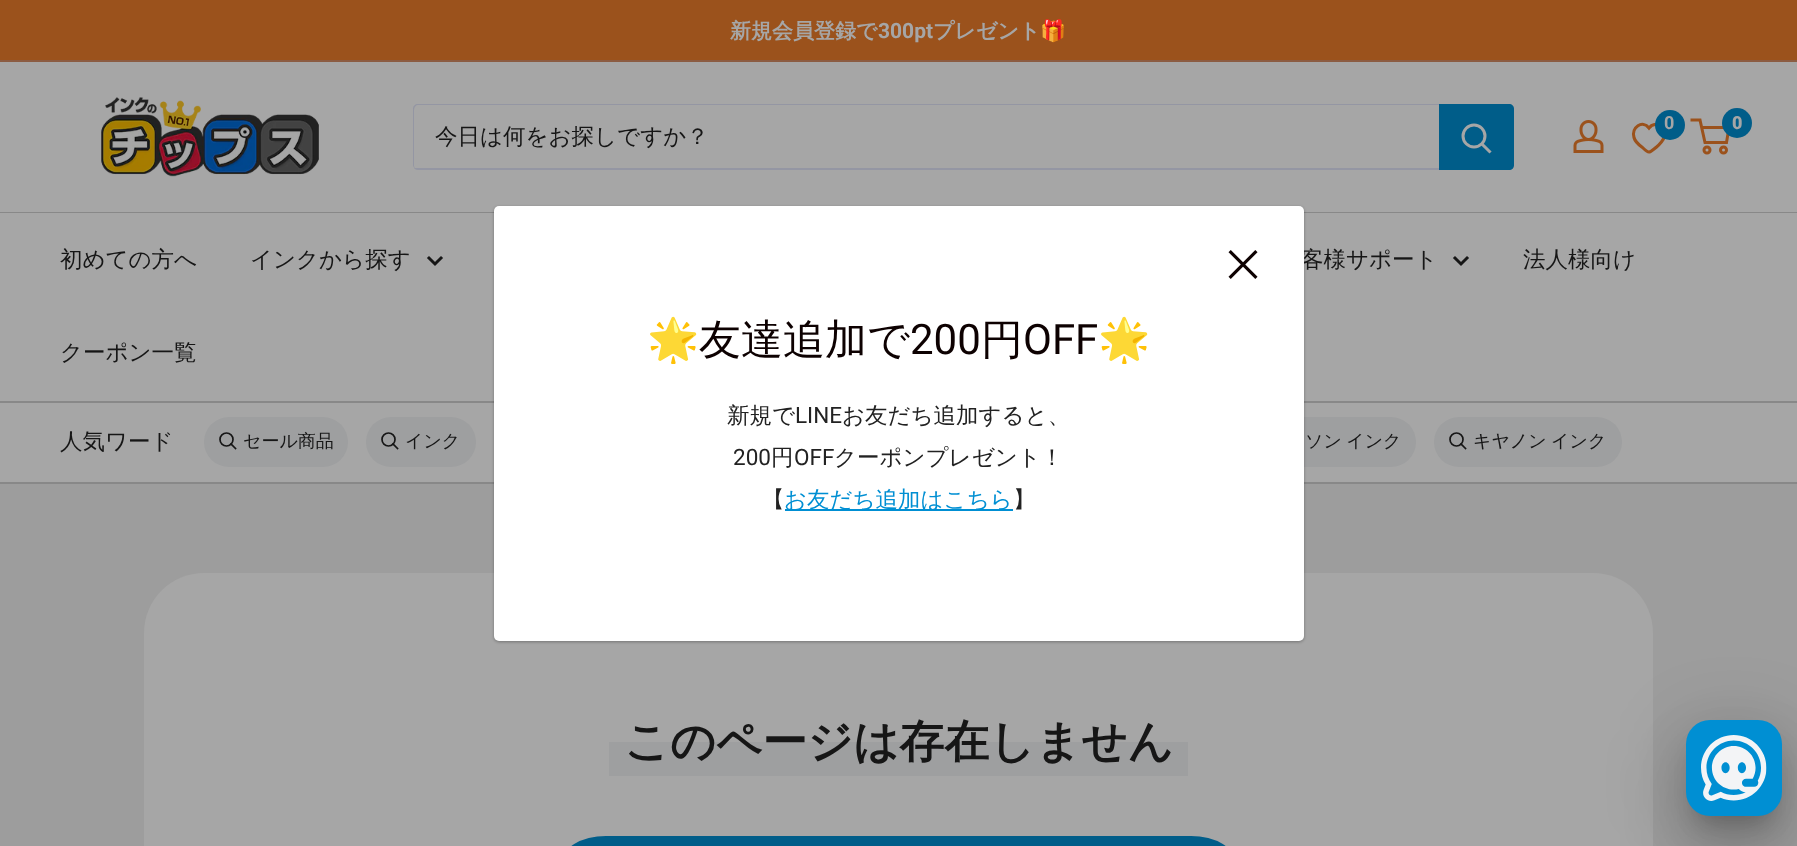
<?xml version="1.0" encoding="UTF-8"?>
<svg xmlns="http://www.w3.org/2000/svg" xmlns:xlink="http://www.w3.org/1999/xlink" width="1797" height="846">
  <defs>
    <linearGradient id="g1" gradientUnits="userSpaceOnUse" x1="899" y1="776" x2="899" y2="708"><stop offset="0" stop-color="#9e9fa0" /><stop offset="0.5" stop-color="#9e9fa0" /><stop offset="0.5" stop-color="#a6a6a6" /><stop offset="1" stop-color="#a6a6a6" /></linearGradient>
  </defs>
  <rect width="100%" height="100%" fill="#9d9d9d" />
  <rect width="1797" height="60" fill="#9b521c" />
  <rect y="60" width="1797" height="2" fill="#8c5c42" />
  <rect y="62" width="1797" height="150" fill="#a6a6a6" />
  <rect y="212" width="1797" height="1" fill="#888888" />
  <image x="101" y="97" width="218" height="80" xlink:href="image1.png" />
  <image x="1573" y="120" width="31" height="33" xlink:href="image2.png" />
  <path d="M 1649 152 c -1.5 0 -5.5 -3.5 -6.5 -4.5 c -3.5 -2.5 -7.5 -6 -8.5 -10 c -3 -10 8.5 -18 15 -9.5 c 6 -8 18 -1 15.5 8.5 c -1.5 4.5 -5 8 -8.5 11 c -1 0.5 -5 4.5 -7 4.5 z" fill="none" stroke="#9b521c" stroke-width="3.1" />
  <circle cx="1670" cy="125" r="15" fill="#005d89" />
  <circle cx="1707" cy="150" r="3" fill="none" stroke="#9b521c" stroke-width="3" />
  <circle cx="1723.5" cy="150" r="3" fill="none" stroke="#9b521c" stroke-width="3" />
  <path d="M 1701.5 127.5 h 27.5 l -2.5 15 h -21.5 l -5 -22.5 h -9.5" fill="none" stroke="#9b521c" stroke-width="3" />
  <circle cx="1737" cy="123" r="15" fill="#005d89" />
  <path d="M 414 168 c 1 1 2 2 4 2 h 1091 c 3 0 5 -2 5 -5 v -56 c 0 -2 -1 -3 -2 -4 v 59 c 0 2 -2 4 -4 4 h -1092 z" fill="#9496a3" />
  <path d="M 418 105 h 1092 l 3 1 c -1 -1 -3 -2 -4 -2 h -1091 c -3 0 -5 2 -5 5 v 56 c 0 1 1 3 2 4 l -1 -3 v -56 c 0 -3 2 -5 4 -5 z" fill="#9496a3" />
  <path d="M 1439 104 h 70 c 3 0 5 2 5 5 v 56 c 0 3 -2 5 -5 5 h -70 z" fill="#005d89" />
  <path d="M 1489.5 151.5 l -7.5 -7.5" fill="none" stroke="#a6a6a6" stroke-width="3" stroke-linecap="square" />
  <circle cx="1474" cy="136" r="11" fill="none" stroke="#a6a6a6" stroke-width="3" />
  <rect y="213" width="1797" height="188" fill="#a6a6a6" />
  <path d="M 441 258 l -6 6 l -6 -6" fill="none" stroke="#161616" stroke-width="3" stroke-linecap="square" />
  <path d="M 1467 258 l -6 6 l -6 -6" fill="none" stroke="#161616" stroke-width="3" stroke-linecap="square" />
  <rect y="403" width="1797" height="79" fill="#a6a6a6" />
  <rect y="401" width="1797" height="2" fill="#888888" />
  <rect y="482" width="1797" height="2" fill="#888888" />
  <rect x="1229" y="417" width="187" height="50" rx="25" fill="#9e9fa0" />
  <rect x="144" y="573" width="1509" height="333" rx="60" fill="#a6a6a6" />
  <rect x="494" y="207" width="810" height="435" rx="5" fill="#000000" fill-opacity="0.3" filter="blur(1.5px)" />
  <rect x="204" y="417" width="144" height="50" rx="25" fill="#9e9fa0" />
  <path d="M 235.5 448.5 l -4.5 -4.5" fill="none" stroke="#161616" stroke-width="1.7" stroke-linecap="square" />
  <circle cx="226.5" cy="439.5" r="6.5" fill="none" stroke="#161616" stroke-width="1.7" />
  <rect x="366" y="417" width="110" height="50" rx="25" fill="#9e9fa0" />
  <path d="M 397.5 448.5 l -4.5 -4.5" fill="none" stroke="#161616" stroke-width="1.7" stroke-linecap="square" />
  <circle cx="388.5" cy="439.5" r="6.5" fill="none" stroke="#161616" stroke-width="1.7" />
  <rect x="1434" y="417" width="188" height="50" rx="25" fill="#9e9fa0" />
  <path d="M 1465.5 448.5 l -4.5 -4.5" fill="none" stroke="#161616" stroke-width="1.7" stroke-linecap="square" />
  <circle cx="1456.5" cy="439.5" r="6.5" fill="none" stroke="#161616" stroke-width="1.7" />
  <rect x="609" y="742" width="579" height="34" fill="url(#g1)" />
  <rect x="561" y="836" width="675" height="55" rx="45" fill="#005d89" />
  <rect x="1697" y="747" width="75" height="75" rx="14" fill="#000000" fill-opacity="0.2" filter="blur(11px)" />
  <rect x="1682" y="752" width="105" height="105" rx="29" fill="#000000" fill-opacity="0.14" filter="blur(28.5px)" />
  <rect x="1674" y="722" width="120" height="120" rx="36" fill="#000000" fill-opacity="0.12" filter="blur(34.5px)" />
  <rect x="1686" y="720" width="96" height="96" rx="24" fill="#008fd3" />
  <image x="1701" y="735" width="66" height="66" xlink:href="image4.png" />
  <text x="730" y="38" style="font-family: WenQuanYi Zen Hei; font-size: 21px; font-weight: bold; fill: #a6a6a6">新規会員登録で</text>
  <text x="878" y="38" style="font-family: Roboto; font-size: 21px; font-weight: bold; fill: #a6a6a6">300pt</text>
  <text x="933" y="38" style="font-family: WenQuanYi Zen Hei; font-size: 21px; font-weight: bold; fill: #a6a6a6">プレゼント</text>
  <text x="1040" y="38" style="font-family: Noto Color Emoji; font-size: 21px; font-weight: bold; fill: #a6a6a6">🎁</text>
  <text x="1664" y="129" style="font-family: Roboto; font-size: 18px; font-weight: bold; fill: #a6a6a6">0</text>
  <text x="1732" y="129" style="font-family: Roboto; font-size: 18px; font-weight: 900; fill: #a6a6a6">0</text>
  <text x="435" y="144" style="font-family: WenQuanYi Zen Hei; font-size: 22.5px; font-weight: 500; fill: #161616">今日は何をお探しですか？</text>
  <text x="60" y="267" style="font-family: WenQuanYi Zen Hei; font-size: 22.5px; font-weight: 500; fill: #161616">初めての方へ</text>
  <text x="250" y="267" style="font-family: WenQuanYi Zen Hei; font-size: 22.5px; font-weight: 500; fill: #161616">インクから探す</text>
  <text x="1301" y="267" style="font-family: WenQuanYi Zen Hei; font-size: 22.5px; font-weight: 500; fill: #161616">客様サポート</text>
  <text x="1523" y="267" style="font-family: WenQuanYi Zen Hei; font-size: 22.5px; font-weight: 500; fill: #161616">法人様向け</text>
  <text x="60" y="360" style="font-family: WenQuanYi Zen Hei; font-size: 22.5px; font-weight: 500; fill: #161616">クーポン一覧</text>
  <rect x="494" y="206" width="810" height="435" rx="5" fill="#ffffff" />
  <image x="1228" y="250" width="30" height="29" xlink:href="image3.png" />
  <text x="647" y="354" style="font-family: Noto Color Emoji; font-size: 42px; fill: #0d0101">🌟</text>
  <text x="699" y="354" style="font-family: WenQuanYi Zen Hei; font-size: 42px; font-weight: 500; fill: #0d0101">友達追加で</text>
  <text x="910" y="354" style="font-family: Roboto; font-size: 42px; fill: #0d0101">200</text>
  <text x="981" y="354" style="font-family: WenQuanYi Zen Hei; font-size: 42px; font-weight: 500; fill: #0d0101">円</text>
  <text x="1023" y="354" style="font-family: Roboto; font-size: 42px; fill: #0d0101">OFF</text>
  <text x="1098" y="354" style="font-family: Noto Color Emoji; font-size: 42px; fill: #0d0101">🌟</text>
  <text x="727" y="423" style="font-family: WenQuanYi Zen Hei; font-size: 22.5px; font-weight: 500; fill: #222222">新規で</text>
  <text x="795" y="423" style="font-family: Roboto; font-size: 22.5px; fill: #222222">LINE</text>
  <text x="842" y="423" style="font-family: WenQuanYi Zen Hei; font-size: 22.5px; font-weight: 500; fill: #222222">お友だち追加すると、</text>
  <text x="733" y="465" style="font-family: Roboto; font-size: 22.5px; fill: #222222">200</text>
  <text x="771" y="465" style="font-family: WenQuanYi Zen Hei; font-size: 22.5px; font-weight: 500; fill: #222222">円</text>
  <text x="794" y="465" style="font-family: Roboto; font-size: 22.5px; fill: #222222">OFF</text>
  <text x="834" y="465" style="font-family: WenQuanYi Zen Hei; font-size: 22.5px; font-weight: 500; fill: #222222">クーポンプレゼント！</text>
  <text x="762" y="507" style="font-family: WenQuanYi Zen Hei; font-size: 22.5px; font-weight: 500; fill: #222222">【</text>
  <rect x="785" y="509" width="228" height="2" fill="#008fd3" />
  <text x="784" y="507" style="font-family: WenQuanYi Zen Hei; font-size: 22.5px; font-weight: 500; fill: #008fd3">お友だち追加はこちら</text>
  <text x="1013" y="507" style="font-family: WenQuanYi Zen Hei; font-size: 22.5px; font-weight: 500; fill: #222222">】</text>
  <text x="60" y="449" style="font-family: WenQuanYi Zen Hei; font-size: 22.5px; font-weight: 500; fill: #161616">人気ワード</text>
  <text x="243" y="447" style="font-family: WenQuanYi Zen Hei; font-size: 18px; font-weight: 500; fill: #161616">セール商品</text>
  <text x="405" y="447" style="font-family: WenQuanYi Zen Hei; font-size: 18px; font-weight: 500; fill: #161616">インク</text>
  <text x="1305" y="447" word-spacing="-1" style="font-family: WenQuanYi Zen Hei; font-size: 18px; font-weight: 500; fill: #161616">ソン インク</text>
  <text x="1473" y="447" word-spacing="-1" style="font-family: WenQuanYi Zen Hei; font-size: 18px; font-weight: 500; fill: #161616">キヤノン インク</text>
  <text x="624" y="757" style="font-family: WenQuanYi Zen Hei; font-size: 45px; font-weight: bold; fill: #161616">このページは存在しません</text>
</svg>
